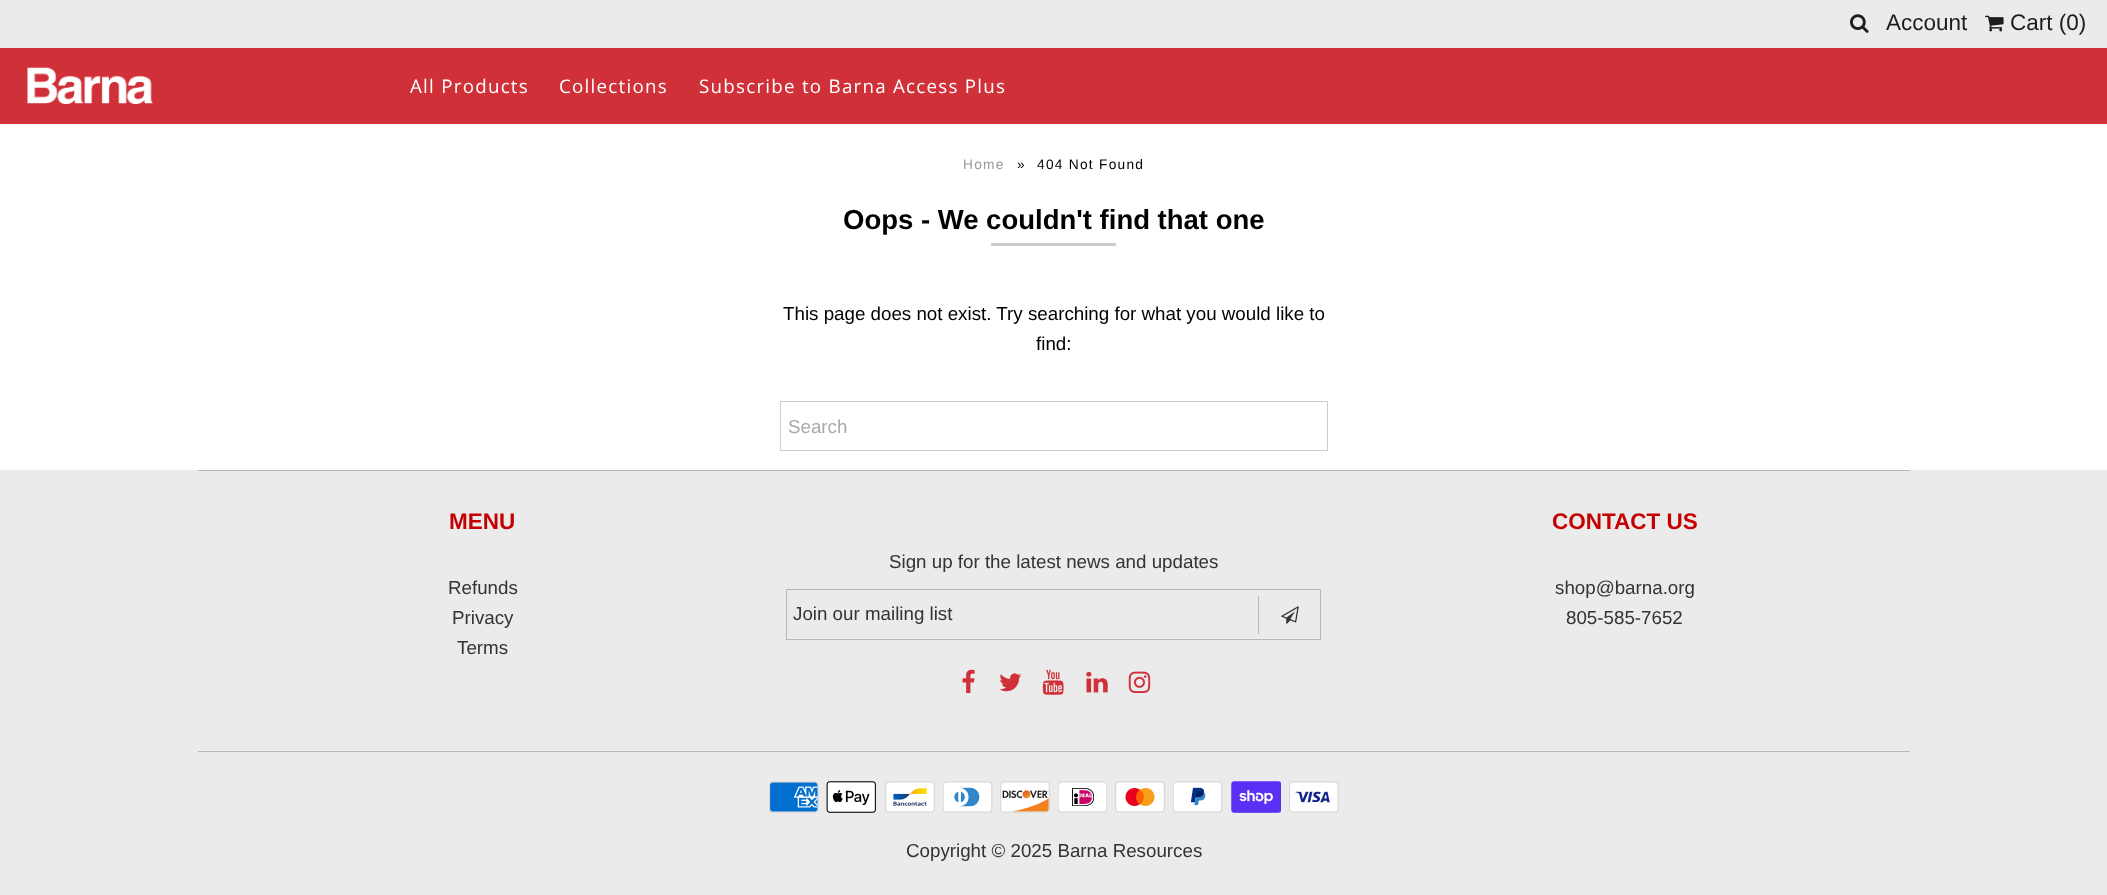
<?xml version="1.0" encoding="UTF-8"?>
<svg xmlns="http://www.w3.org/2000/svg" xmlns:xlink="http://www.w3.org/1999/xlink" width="2107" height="895">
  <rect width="100%" height="100%" fill="#ffffff" />
  <rect width="2107" height="48" fill="#ebebeb" />
  <image x="1850" y="14" width="19" height="19" xlink:href="image1.png" />
  <image x="1985" y="15" width="19" height="17" xlink:href="image2.png" />
  <rect y="48" width="2107" height="76" fill="#d03138" />
  <image x="27" y="67" width="126" height="37" xlink:href="image3.png" />
  <rect x="991" y="243" width="125" height="3" fill="#cccccc" />
  <rect x="780.5" y="401.5" width="547" height="49" fill="none" stroke="#cccccc" />
  <rect y="470" width="2107" height="425" fill="#ebebeb" />
  <rect x="198" y="470" width="1712" height="1" fill="#b8b8b8" />
  <rect x="198" y="751" width="1712" height="1" fill="#b8b8b8" />
  <rect x="786.5" y="589.5" width="534" height="50" fill="none" stroke="#b8b8b8" />
  <rect x="1258" y="596" width="1" height="38" fill="#b8b8b8" />
  <image x="1281" y="606" width="18" height="18" xlink:href="image4.png" />
  <image x="962" y="669" width="13" height="25" xlink:href="image5.png" />
  <image x="999" y="673" width="23" height="19" xlink:href="image6.png" />
  <image x="1042" y="669" width="22" height="26" xlink:href="image7.png" />
  <image x="1086" y="671" width="22" height="22" xlink:href="image8.png" />
  <image x="1128" y="671" width="23" height="22" xlink:href="image9.png" />
  <image x="769" y="781" width="50" height="32" xlink:href="image10.png" />
  <image x="826" y="781" width="50" height="32" xlink:href="image11.png" />
  <image x="885" y="781" width="50" height="32" xlink:href="image12.png" />
  <image x="943" y="781" width="50" height="32" xlink:href="image13.png" />
  <image x="1000" y="781" width="50" height="32" xlink:href="image14.png" />
  <image x="1058" y="781" width="49" height="32" xlink:href="image15.png" />
  <image x="1115" y="781" width="50" height="32" xlink:href="image16.png" />
  <image x="1173" y="781" width="50" height="32" xlink:href="image17.png" />
  <image x="1231" y="781" width="50" height="32" xlink:href="image18.png" />
  <image x="1289" y="781" width="50" height="32" xlink:href="image19.png" />
  <text x="1886" y="30" style="font-family: Liberation Sans; font-size: 22.5px; fill: #1d1d1d">Account</text>
  <text x="2010" y="30" style="font-family: Liberation Sans; font-size: 22.5px; fill: #1d1d1d">Cart (0)</text>
  <text x="410" y="93" style="font-family: Open Sans; font-size: 18.75px; letter-spacing: 1.25px; fill: #ffffff">All Products</text>
  <text x="559" y="93" style="font-family: Open Sans; font-size: 18.75px; letter-spacing: 1.25px; fill: #ffffff">Collections</text>
  <text x="699" y="93" style="font-family: Open Sans; font-size: 18.75px; letter-spacing: 1.25px; fill: #ffffff">Subscribe to Barna Access Plus</text>
  <text x="963" y="169" style="font-family: Liberation Sans; font-size: 13.75px; letter-spacing: 1.25px; fill: #999999">Home</text>
  <text x="1017" y="169" style="font-family: Liberation Sans; font-size: 13.75px; letter-spacing: 1.25px; fill: #000000">»</text>
  <text x="1037" y="169" style="font-family: Liberation Sans; font-size: 13.75px; letter-spacing: 1.25px; fill: #000000">404 Not Found</text>
  <text x="843" y="229" style="font-family: Liberation Sans; font-size: 27.5px; font-weight: bold; fill: #000000">Oops - We couldn't find that one</text>
  <text x="783" y="320" style="font-family: Liberation Sans; font-size: 18.75px; fill: #000000">This page does not exist. Try searching for what you would like to</text>
  <text x="1036" y="350" style="font-family: Liberation Sans; font-size: 18.75px; fill: #000000">find:</text>
  <text x="788" y="433" style="font-family: Liberation Sans; font-size: 18.75px; fill: #aaaaaa">Search</text>
  <text x="449" y="529" style="font-family: Liberation Sans; font-size: 22.5px; font-weight: bold; fill: #c40000">MENU</text>
  <text x="448" y="594" style="font-family: Liberation Sans; font-size: 18.75px; fill: #333333">Refunds</text>
  <text x="452" y="624" style="font-family: Liberation Sans; font-size: 18.75px; fill: #333333">Privacy</text>
  <text x="457" y="654" style="font-family: Liberation Sans; font-size: 18.75px; fill: #333333">Terms</text>
  <text x="889" y="568" style="font-family: Liberation Sans; font-size: 18.75px; fill: #333333">Sign up for the latest news and updates</text>
  <text x="793" y="620" style="font-family: Liberation Sans; font-size: 18.75px; fill: #333333">Join our mailing list</text>
  <text x="1552" y="529" style="font-family: Liberation Sans; font-size: 22.5px; font-weight: bold; fill: #c40000">CONTACT US</text>
  <text x="1555" y="594" style="font-family: Liberation Sans; font-size: 18.75px; fill: #333333">shop@barna.org</text>
  <text x="1566" y="624" style="font-family: Liberation Sans; font-size: 18.75px; fill: #333333">805-585-7652</text>
  <text x="906" y="857" style="font-family: Liberation Sans; font-size: 18.75px; fill: #333333">Copyright © 2025 Barna Resources</text>
</svg>
